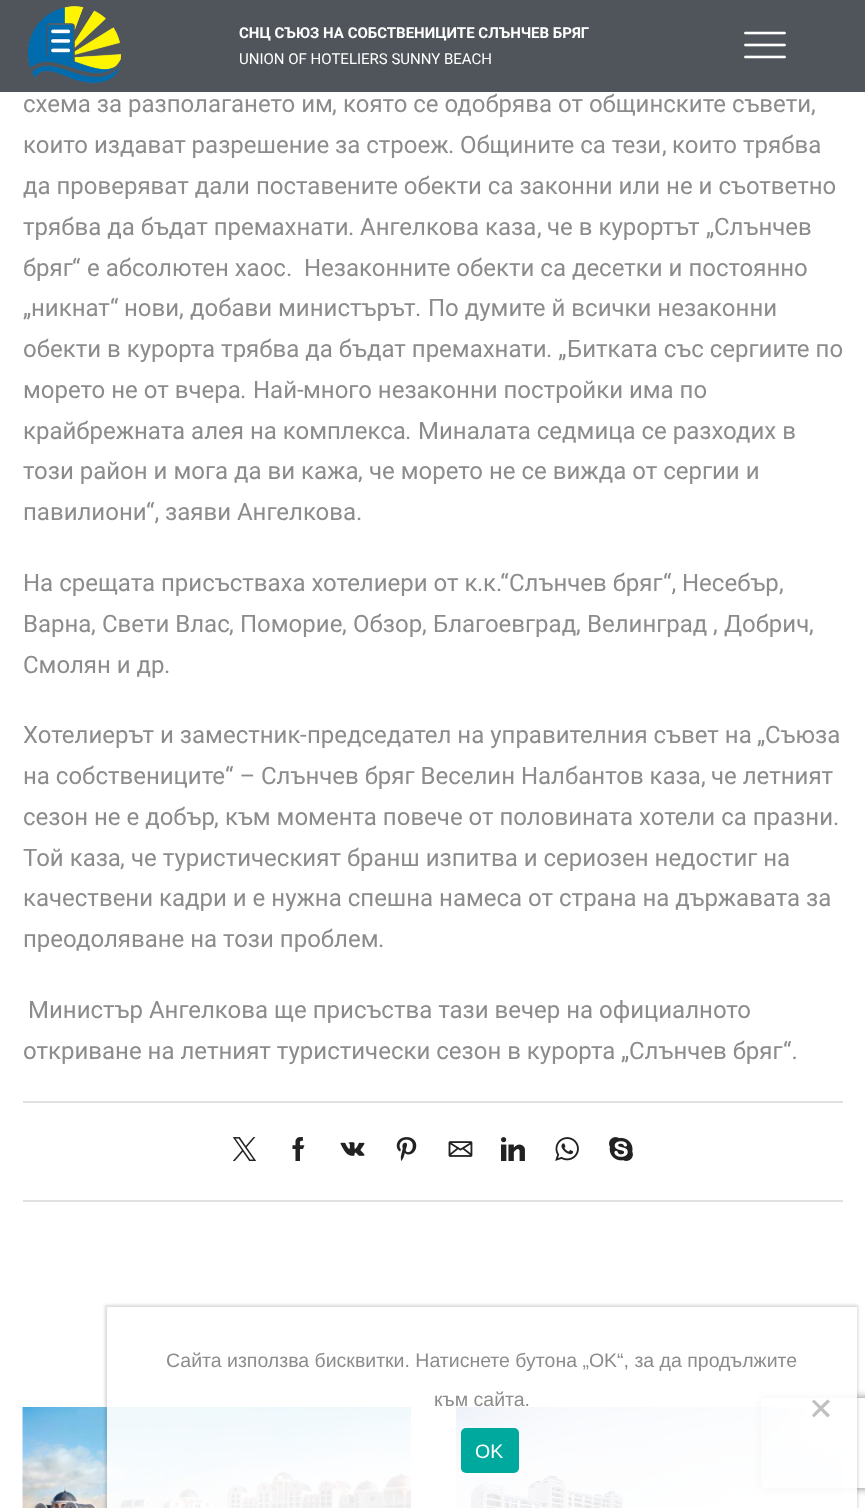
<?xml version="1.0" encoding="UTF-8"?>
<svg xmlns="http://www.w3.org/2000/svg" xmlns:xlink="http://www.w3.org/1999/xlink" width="865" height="1508">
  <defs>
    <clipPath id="clip1"><path d="M 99 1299 h 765 v 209 h -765 z m 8 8 h 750 v 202 h -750 z" clip-rule="evenodd" /></clipPath>
    <clipPath id="clip2"><path d="M 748 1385 h 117 v 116 h -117 z m 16 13 h 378 c 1.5 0 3 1.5 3 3 v 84 c 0 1.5 -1.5 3 -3 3 h -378 c -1.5 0 -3 -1.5 -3 -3 v -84 c 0 -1.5 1.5 -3 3 -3 z" clip-rule="evenodd" /></clipPath>
  </defs>
  <rect width="100%" height="100%" fill="#ffffff" />
  <rect width="865" height="92" fill="#4f555a" />
  <image x="28" y="6" width="93" height="78" xlink:href="image1.png" />
  <image x="744" y="31" width="42" height="28" xlink:href="image2.png" />
  <rect x="23" y="1101" width="820" height="2" fill="#e1e1e1" />
  <rect x="23" y="1200" width="820" height="2" fill="#e1e1e1" />
  <image x="232" y="1137" width="25" height="24" xlink:href="image3.png" />
  <image x="292" y="1137" width="13" height="24" xlink:href="image4.png" />
  <image x="340" y="1142" width="25" height="14" xlink:href="image5.png" />
  <image x="396" y="1137" width="21" height="24" xlink:href="image6.png" />
  <image x="448" y="1141" width="25" height="16" xlink:href="image7.png" />
  <image x="501" y="1137" width="24" height="24" xlink:href="image8.png" />
  <image x="555" y="1137" width="24" height="24" xlink:href="image9.png" />
  <image x="609" y="1137" width="24" height="24" xlink:href="image10.png" />
  <image x="22" y="1407" width="389" height="101" xlink:href="image11.png" />
  <image x="456" y="1407" width="387" height="101" xlink:href="image12.png" />
  <g clip-path="url(#clip1)">
    <rect x="105" y="1305" width="753" height="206" fill="#000000" fill-opacity="0.15" filter="blur(1.5px)" />
  </g>
  <g clip-path="url(#clip2)">
    <rect x="761" y="1398" width="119" height="90" rx="3" fill="#808080" filter="blur(4px)" />
  </g>
  <rect x="107" y="1307" width="750" height="201" fill="#ffffff" fill-opacity="0.9" />
  <path d="M 827.5 1399.5 l 2.5 2 l -16 16 l -2 -2.5 z" fill="#c0c0c0" />
  <path d="M 812 1401.5 l 2 -2 l 16 15.5 l -2.5 2.5 z" fill="#c0c0c0" />
  <rect x="461" y="1428" width="58" height="45" rx="5" fill="#00a99d" />
  <text x="239" y="38" style="font-family: Roboto; font-size: 15px; font-weight: bold; fill: #ffffff">СНЦ СЪЮЗ НА СОБСТВЕНИЦИТЕ СЛЪНЧЕВ БРЯГ</text>
  <text x="239" y="64" style="font-family: 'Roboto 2'; font-size: 15px; fill: #ffffff">UNION OF HOTELIERS SUNNY BEACH</text>
  <text x="23" y="112" style="font-family: Roboto; font-size: 24px; fill: #8c8c8c">схема за разполагането им</text>
  <text x="332" y="112" style="font-family: 'Roboto 2'; font-size: 24px; fill: #8c8c8c">,</text>
  <text x="343" y="112" style="font-family: Roboto; font-size: 24px; fill: #8c8c8c">която се одобрява от общинските съвети</text>
  <text x="811" y="112" style="font-family: 'Roboto 2'; font-size: 24px; fill: #8c8c8c">,</text>
  <text x="23" y="153" style="font-family: Roboto; font-size: 24px; fill: #8c8c8c">които издават разрешение за строеж</text>
  <text x="448" y="153" style="font-family: 'Roboto 2'; font-size: 24px; fill: #8c8c8c">.</text>
  <text x="460" y="153" style="font-family: Roboto; font-size: 24px; fill: #8c8c8c">Общините са тези</text>
  <text x="662" y="153" style="font-family: 'Roboto 2'; font-size: 24px; fill: #8c8c8c">,</text>
  <text x="672" y="153" style="font-family: Roboto; font-size: 24px; fill: #8c8c8c">които трябва</text>
  <text x="23" y="194" style="font-family: Roboto; font-size: 24px; fill: #8c8c8c">да проверяват дали поставените обекти са законни или не и съответно</text>
  <text x="23" y="235" style="font-family: Roboto; font-size: 24px; fill: #8c8c8c">трябва да бъдат премахнати</text>
  <text x="348" y="235" style="font-family: 'Roboto 2'; font-size: 24px; fill: #8c8c8c">.</text>
  <text x="360" y="235" style="font-family: Roboto; font-size: 24px; fill: #8c8c8c">Ангелкова каза</text>
  <text x="537" y="235" style="font-family: 'Roboto 2'; font-size: 24px; fill: #8c8c8c">,</text>
  <text x="547" y="235" style="font-family: Roboto; font-size: 24px; fill: #8c8c8c">че в курортът</text>
  <text x="706" y="235" style="font-family: 'Roboto 2'; font-size: 24px; fill: #8c8c8c">„</text>
  <text x="714" y="235" style="font-family: Roboto; font-size: 24px; fill: #8c8c8c">Слънчев</text>
  <text x="23" y="276" style="font-family: Roboto; font-size: 24px; fill: #8c8c8c">бряг</text>
  <text x="72" y="276" style="font-family: 'Roboto 2'; font-size: 24px; fill: #8c8c8c">“</text>
  <text x="87" y="276" style="font-family: Roboto; font-size: 24px; fill: #8c8c8c">е абсолютен хаос</text>
  <text x="286" y="276" style="font-family: 'Roboto 2'; font-size: 24px; fill: #8c8c8c">.</text>
  <text x="304" y="276" style="font-family: Roboto; font-size: 24px; fill: #8c8c8c">Незаконните обекти са десетки и постоянно</text>
  <text x="23" y="316" style="font-family: 'Roboto 2'; font-size: 24px; fill: #8c8c8c">„</text>
  <text x="31" y="316" style="font-family: Roboto; font-size: 24px; fill: #8c8c8c">никнат</text>
  <text x="110" y="316" style="font-family: 'Roboto 2'; font-size: 24px; fill: #8c8c8c">“</text>
  <text x="124" y="316" style="font-family: Roboto; font-size: 24px; fill: #8c8c8c">нови</text>
  <text x="179" y="316" style="font-family: 'Roboto 2'; font-size: 24px; fill: #8c8c8c">,</text>
  <text x="190" y="316" style="font-family: Roboto; font-size: 24px; fill: #8c8c8c">добави министърът</text>
  <text x="415" y="316" style="font-family: 'Roboto 2'; font-size: 24px; fill: #8c8c8c">.</text>
  <text x="428" y="316" style="font-family: Roboto; font-size: 24px; fill: #8c8c8c">По думите й всички незаконни</text>
  <text x="23" y="357" style="font-family: Roboto; font-size: 24px; fill: #8c8c8c">обекти в курорта трябва да бъдат премахнати</text>
  <text x="546" y="357" style="font-family: 'Roboto 2'; font-size: 24px; fill: #8c8c8c">. „</text>
  <text x="567" y="357" style="font-family: Roboto; font-size: 24px; fill: #8c8c8c">Битката със сергиите по</text>
  <text x="23" y="398" style="font-family: Roboto; font-size: 24px; fill: #8c8c8c">морето не от вчера</text>
  <text x="253" y="398" style="font-family: Roboto; font-size: 24px; fill: #8c8c8c">Най</text>
  <text x="297" y="398" style="font-family: 'Roboto 2'; font-size: 24px; fill: #8c8c8c">-</text>
  <text x="303" y="398" style="font-family: Roboto; font-size: 24px; fill: #8c8c8c">много незаконни постройки има по</text>
  <text x="240" y="398" style="font-family: 'Roboto 2'; font-size: 24px; fill: #8c8c8c">.</text>
  <text x="23" y="439" style="font-family: Roboto; font-size: 24px; fill: #8c8c8c">крайбрежната алея на комплекса</text>
  <text x="405" y="439" style="font-family: 'Roboto 2'; font-size: 24px; fill: #8c8c8c">.</text>
  <text x="418" y="439" style="font-family: Roboto; font-size: 24px; fill: #8c8c8c">Миналата седмица се разходих в</text>
  <text x="23" y="479" style="font-family: Roboto; font-size: 24px; fill: #8c8c8c">този район и мога да ви кажа</text>
  <text x="358" y="479" style="font-family: 'Roboto 2'; font-size: 24px; fill: #8c8c8c">,</text>
  <text x="369" y="479" style="font-family: Roboto; font-size: 24px; fill: #8c8c8c">че морето не се вижда от сергии и</text>
  <text x="23" y="520" style="font-family: Roboto; font-size: 24px; fill: #8c8c8c">павилиони</text>
  <text x="146" y="520" style="font-family: 'Roboto 2'; font-size: 24px; fill: #8c8c8c">“,</text>
  <text x="165" y="520" style="font-family: Roboto; font-size: 24px; fill: #8c8c8c">заяви Ангелкова</text>
  <text x="356" y="520" style="font-family: 'Roboto 2'; font-size: 24px; fill: #8c8c8c">.</text>
  <text x="23" y="591" style="font-family: Roboto; font-size: 24px; fill: #8c8c8c">На срещата присъстваха хотелиери от к</text>
  <text x="477" y="591" style="font-family: 'Roboto 2'; font-size: 24px; fill: #8c8c8c">.</text>
  <text x="483" y="591" style="font-family: Roboto; font-size: 24px; fill: #8c8c8c">к</text>
  <text x="496" y="591" style="font-family: 'Roboto 2'; font-size: 24px; fill: #8c8c8c">.“</text>
  <text x="509" y="591" style="font-family: Roboto; font-size: 24px; fill: #8c8c8c">Слънчев бряг</text>
  <text x="663" y="591" style="font-family: 'Roboto 2'; font-size: 24px; fill: #8c8c8c">“,</text>
  <text x="682" y="591" style="font-family: Roboto; font-size: 24px; fill: #8c8c8c">Несебър</text>
  <text x="779" y="591" style="font-family: 'Roboto 2'; font-size: 24px; fill: #8c8c8c">,</text>
  <text x="23" y="632" style="font-family: Roboto; font-size: 24px; fill: #8c8c8c">Варна</text>
  <text x="91" y="632" style="font-family: 'Roboto 2'; font-size: 24px; fill: #8c8c8c">,</text>
  <text x="102" y="632" style="font-family: Roboto; font-size: 24px; fill: #8c8c8c">Свети Влас</text>
  <text x="229" y="632" style="font-family: 'Roboto 2'; font-size: 24px; fill: #8c8c8c">,</text>
  <text x="240" y="632" style="font-family: Roboto; font-size: 24px; fill: #8c8c8c">Поморие</text>
  <text x="342" y="632" style="font-family: 'Roboto 2'; font-size: 24px; fill: #8c8c8c">,</text>
  <text x="353" y="632" style="font-family: Roboto; font-size: 24px; fill: #8c8c8c">Обзор</text>
  <text x="422" y="632" style="font-family: 'Roboto 2'; font-size: 24px; fill: #8c8c8c">,</text>
  <text x="433" y="632" style="font-family: Roboto; font-size: 24px; fill: #8c8c8c">Благоевград</text>
  <text x="576" y="632" style="font-family: 'Roboto 2'; font-size: 24px; fill: #8c8c8c">,</text>
  <text x="587" y="632" style="font-family: Roboto; font-size: 24px; fill: #8c8c8c">Велинград</text>
  <text x="713" y="632" style="font-family: 'Roboto 2'; font-size: 24px; fill: #8c8c8c">,</text>
  <text x="724" y="632" style="font-family: Roboto; font-size: 24px; fill: #8c8c8c">Добрич</text>
  <text x="809" y="632" style="font-family: 'Roboto 2'; font-size: 24px; fill: #8c8c8c">,</text>
  <text x="23" y="673" style="font-family: Roboto; font-size: 24px; fill: #8c8c8c">Смолян и др</text>
  <text x="164" y="673" style="font-family: 'Roboto 2'; font-size: 24px; fill: #8c8c8c">.</text>
  <text x="23" y="743" style="font-family: Roboto; font-size: 24px; fill: #8c8c8c">Хотелиерът и заместник</text>
  <text x="300" y="743" style="font-family: 'Roboto 2'; font-size: 24px; fill: #8c8c8c">-</text>
  <text x="307" y="743" style="font-family: Roboto; font-size: 24px; fill: #8c8c8c">председател на управителния съвет на</text>
  <text x="765" y="743" style="font-family: Roboto; font-size: 24px; fill: #8c8c8c">Съюза</text>
  <text x="757" y="743" style="font-family: 'Roboto 2'; font-size: 24px; fill: #8c8c8c">„</text>
  <text x="23" y="784" style="font-family: Roboto; font-size: 24px; fill: #8c8c8c">на собствениците</text>
  <text x="225" y="784" style="font-family: 'Roboto 2'; font-size: 24px; fill: #8c8c8c">“ –</text>
  <text x="261" y="784" style="font-family: Roboto; font-size: 24px; fill: #8c8c8c">Слънчев бряг Веселин Налбантов каза</text>
  <text x="701" y="784" style="font-family: 'Roboto 2'; font-size: 24px; fill: #8c8c8c">,</text>
  <text x="711" y="784" style="font-family: Roboto; font-size: 24px; fill: #8c8c8c">че летният</text>
  <text x="23" y="825" style="font-family: Roboto; font-size: 24px; fill: #8c8c8c">сезон не е добър</text>
  <text x="214" y="825" style="font-family: 'Roboto 2'; font-size: 24px; fill: #8c8c8c">,</text>
  <text x="225" y="825" style="font-family: Roboto; font-size: 24px; fill: #8c8c8c">към момента повече от половината хотели са празни</text>
  <text x="833" y="825" style="font-family: 'Roboto 2'; font-size: 24px; fill: #8c8c8c">.</text>
  <text x="23" y="866" style="font-family: Roboto; font-size: 24px; fill: #8c8c8c">Той каза</text>
  <text x="120" y="866" style="font-family: 'Roboto 2'; font-size: 24px; fill: #8c8c8c">,</text>
  <text x="131" y="866" style="font-family: Roboto; font-size: 24px; fill: #8c8c8c">че туристическият бранш изпитва и сериозен недостиг на</text>
  <text x="23" y="906" style="font-family: Roboto; font-size: 24px; fill: #8c8c8c">качествени кадри и е нужна спешна намеса от страна на държавата за</text>
  <text x="23" y="947" style="font-family: Roboto; font-size: 24px; fill: #8c8c8c">преодоляване на този проблем</text>
  <text x="378" y="947" style="font-family: 'Roboto 2'; font-size: 24px; fill: #8c8c8c">.</text>
  <text x="28" y="1018" style="font-family: Roboto; font-size: 24px; fill: #8c8c8c">Министър Ангелкова ще присъства тази вечер на официалното</text>
  <text x="23" y="1059" style="font-family: Roboto; font-size: 24px; fill: #8c8c8c">откриване на летният туристически сезон в курорта</text>
  <text x="621" y="1059" style="font-family: 'Roboto 2'; font-size: 24px; fill: #8c8c8c">„</text>
  <text x="629" y="1059" style="font-family: Roboto; font-size: 24px; fill: #8c8c8c">Слънчев бряг</text>
  <text x="783" y="1059" style="font-family: 'Roboto 2'; font-size: 24px; fill: #8c8c8c">“.</text>
  <text x="166" y="1367" style="font-family: Liberation Sans; font-size: 19.5px; fill: #8c8c8c">Сайта използва бисквитки. Натиснете бутона „OK“, за да продължите</text>
  <text x="434" y="1406" style="font-family: Liberation Sans; font-size: 19.5px; fill: #8c8c8c">към сайта.</text>
  <text x="475" y="1458" style="font-family: Liberation Sans; font-size: 19.5px; fill: #ffffff">OK</text>
</svg>
